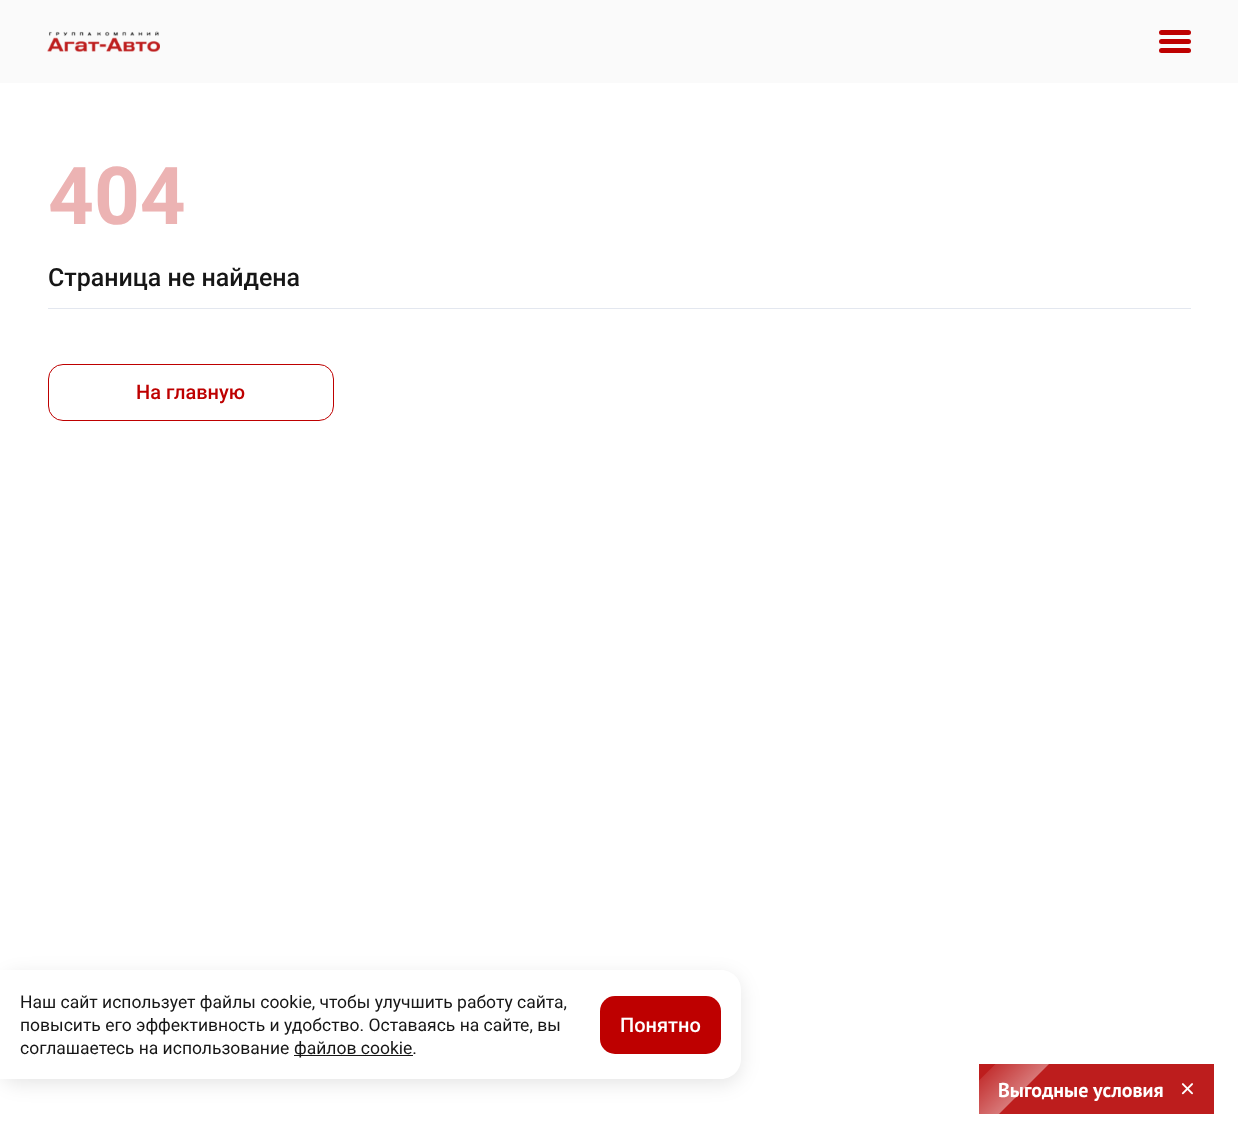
<?xml version="1.0" encoding="UTF-8"?>
<svg xmlns="http://www.w3.org/2000/svg" xmlns:xlink="http://www.w3.org/1999/xlink" width="1238" height="1148">
  <defs>
    <clipPath id="clip1"><rect x="979" y="1064" width="235" height="50" /></clipPath>
    <linearGradient id="g1" gradientUnits="userSpaceOnUse" x1="1009" y1="1051" x2="1035" y2="1078"><stop offset="0" stop-color="#ffffff" stop-opacity="0.1" /><stop offset="1" stop-color="#ffffff" stop-opacity="0.4" /></linearGradient>
  </defs>
  <rect width="100%" height="100%" fill="#ffffff" />
  <rect width="1238" height="83" fill="#fafafa" />
  <image x="47" y="31" width="113" height="21" xlink:href="image1.png" />
  <rect x="1159" y="30" width="32" height="5" rx="2.5" fill="#be0000" />
  <rect x="1159" y="39" width="32" height="5" rx="2.5" fill="#be0000" />
  <rect x="1159" y="48" width="32" height="5" rx="2.5" fill="#be0000" />
  <rect x="48" y="308" width="1143" height="1" fill="#e3e7ef" />
  <rect x="48.5" y="364.5" width="285" height="56" rx="14.5" fill="none" stroke="#be0000" />
  <rect y="975" width="741" height="109" rx="20" fill="#000000" fill-opacity="0.1" filter="blur(9.5px)" />
  <path d="M 0 970 h 721 c 11 0 20 9 20 20 v 69 c 0 11 -9 20 -20 20 h -721 z" fill="#ffffff" />
  <rect x="294" y="1055" width="119" height="1" fill="#161616" />
  <rect x="600" y="996" width="121" height="58" rx="15" fill="#be0000" />
  <rect x="979" y="1064" width="235" height="50" fill="#bd1d1d" />
  <image x="1181" y="1083" width="12" height="12" xlink:href="image2.png" />
  <text x="48" y="224" style="font-family: Roboto; font-size: 80px; font-weight: bold; fill: #ecb3b3">404</text>
  <text x="48" y="286" style="font-family: Roboto; font-size: 25px; font-weight: 500; fill: #161616">Страница не найдена</text>
  <text x="136" y="399" style="font-family: Roboto; font-size: 20px; font-weight: 500; fill: #be0000">На главную</text>
  <text x="20" y="1008" style="font-family: Roboto; font-size: 17.5px; fill: #161616">Наш сайт использует файлы cookie, чтобы улучшить работу сайта,</text>
  <text x="20" y="1031" style="font-family: Roboto; font-size: 17.5px; fill: #161616">повысить его эффективность и удобство. Оставаясь на сайте, вы</text>
  <text x="20" y="1054" style="font-family: Roboto; font-size: 17.5px; fill: #161616">соглашаетесь на использование</text>
  <text x="294" y="1054" style="font-family: Roboto; font-size: 17.5px; fill: #161616">файлов cookie.</text>
  <text x="620" y="1032" style="font-family: Roboto; font-size: 20px; font-weight: 500; fill: #ffffff">Понятно</text>
  <text x="998" y="1097" style="font-family: PT Sans; font-size: 20px; font-weight: bold; fill: #ffffff">Выгодные условия</text>
  <g clip-path="url(#clip1)">
    <path d="M 1141 918 l 27 27 l -265 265 l -27 -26 z" fill="url(#g1)" />
  </g>
</svg>
